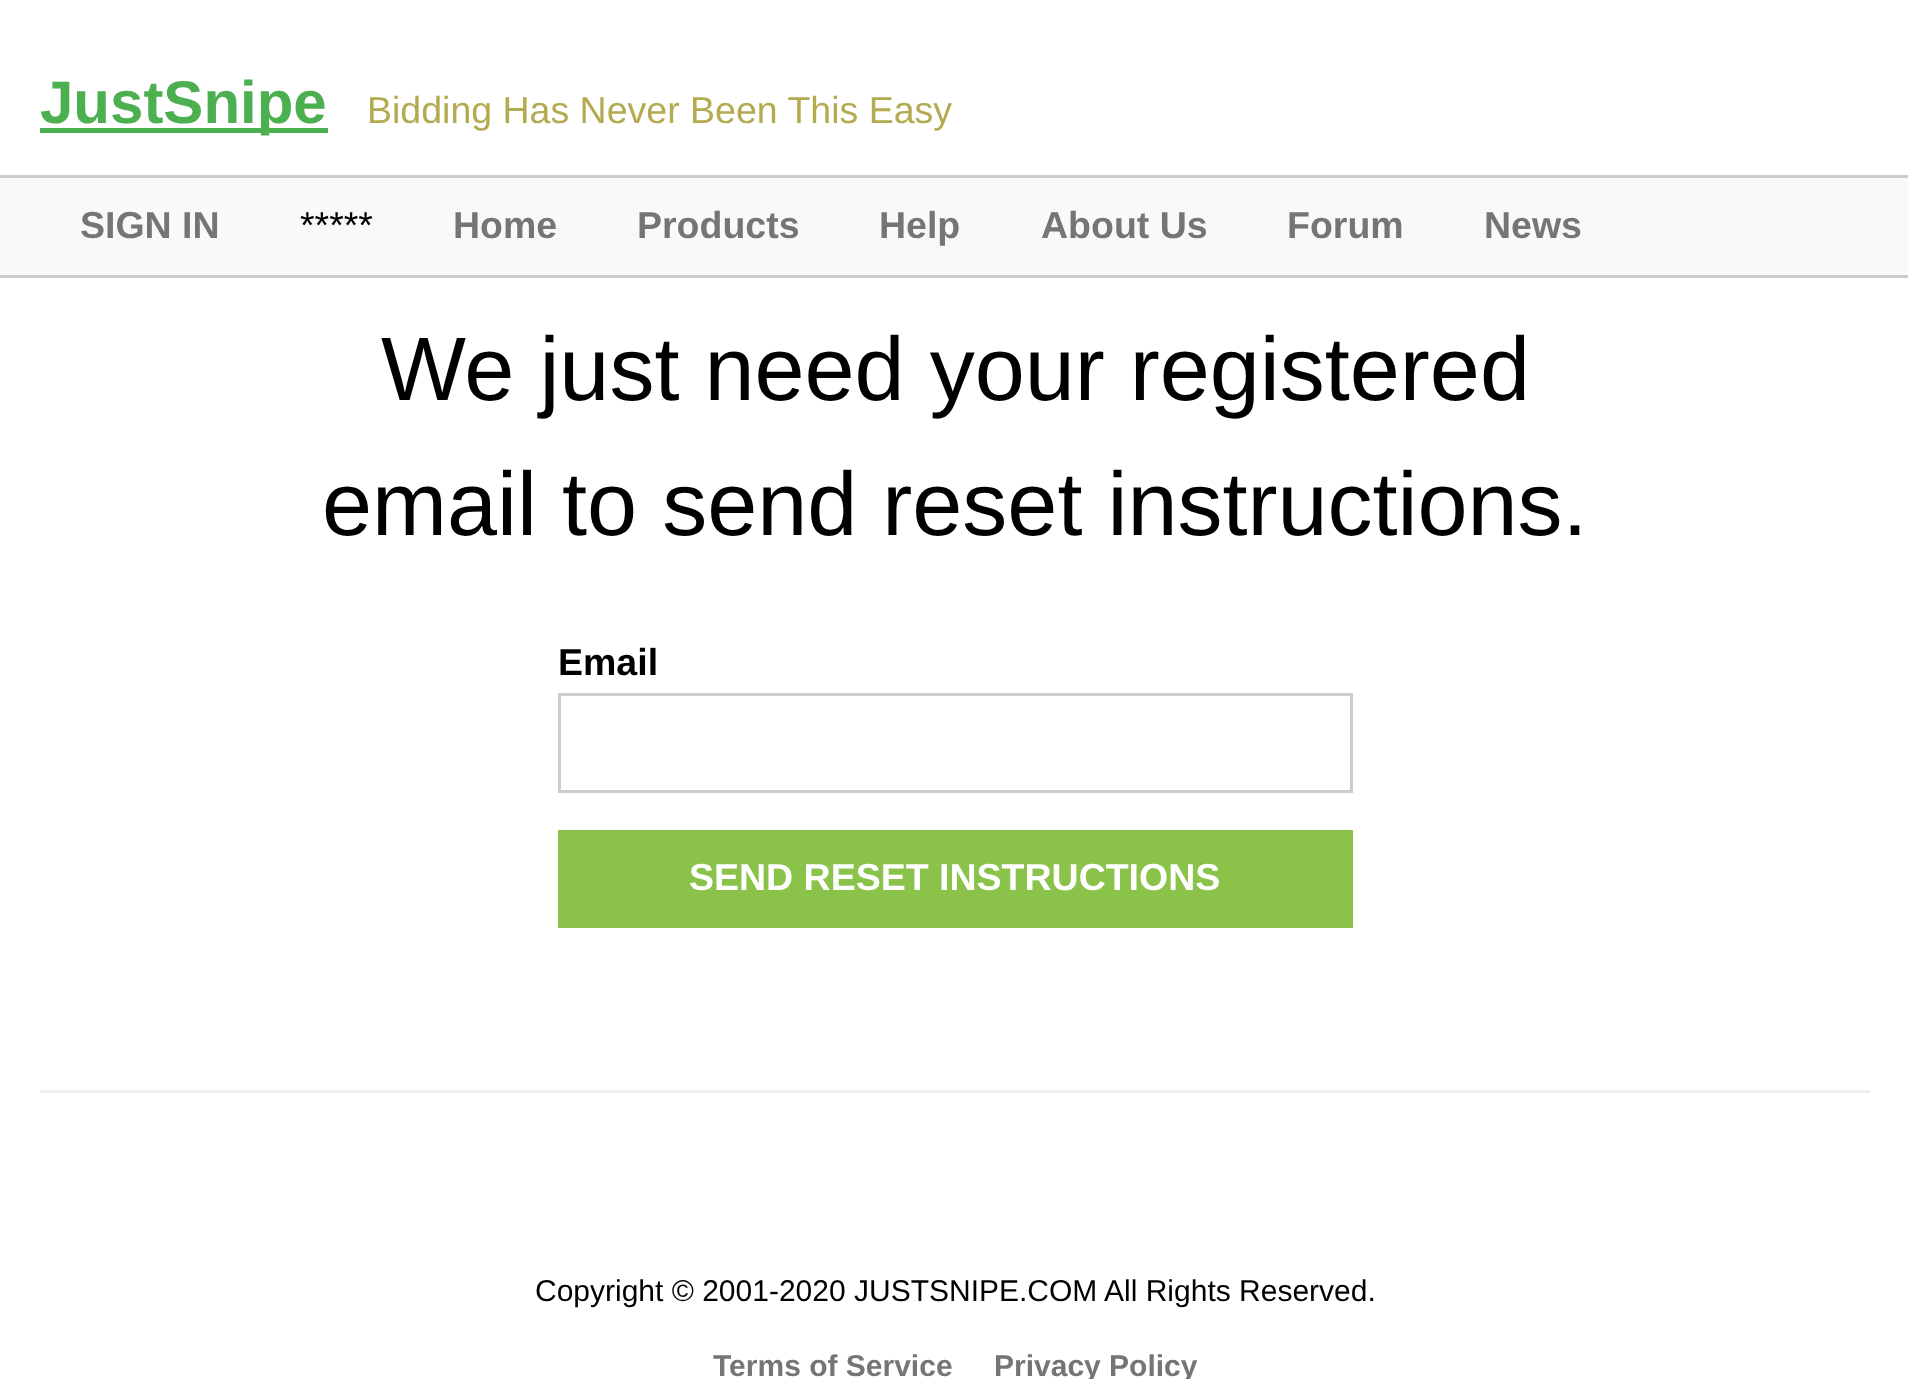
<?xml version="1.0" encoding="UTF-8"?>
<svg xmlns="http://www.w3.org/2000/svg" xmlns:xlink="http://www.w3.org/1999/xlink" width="1908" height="1379">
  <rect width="100%" height="100%" fill="#ffffff" />
  <rect x="40" y="128" width="288" height="5" fill="#4caf50" />
  <rect y="178" width="1908" height="97" fill="#f9f9f9" />
  <rect y="175" width="1908" height="3" fill="#cccccc" />
  <rect y="275" width="1908" height="3" fill="#cccccc" />
  <rect x="559.5" y="694.5" width="792" height="97" fill="none" stroke="#cccccc" stroke-width="3" />
  <rect x="558" y="830" width="795" height="98" fill="#8bc34a" />
  <rect x="40" y="1090" width="1830" height="3" fill="#eeeeee" />
  <text x="40" y="123" style="font-family: Liberation Sans; font-size: 60px; font-weight: bold; fill: #4caf50">JustSnipe</text>
  <text x="367" y="123" style="font-family: Liberation Sans; font-size: 37.5px; fill: #b4aa50">Bidding Has Never Been This Easy</text>
  <text x="80" y="238" style="font-family: Liberation Sans; font-size: 37.5px; font-weight: bold; fill: #757575">SIGN IN</text>
  <text x="300" y="238" style="font-family: Liberation Sans; font-size: 37.5px; fill: #000000">*****</text>
  <text x="453" y="238" style="font-family: Liberation Sans; font-size: 37.5px; font-weight: bold; fill: #757575">Home</text>
  <text x="637" y="238" style="font-family: Liberation Sans; font-size: 37.5px; font-weight: bold; fill: #757575">Products</text>
  <text x="879" y="238" style="font-family: Liberation Sans; font-size: 37.5px; font-weight: bold; fill: #757575">Help</text>
  <text x="1041" y="238" style="font-family: Liberation Sans; font-size: 37.5px; font-weight: bold; fill: #757575">About Us</text>
  <text x="1287" y="238" style="font-family: Liberation Sans; font-size: 37.5px; font-weight: bold; fill: #757575">Forum</text>
  <text x="1484" y="238" style="font-family: Liberation Sans; font-size: 37.5px; font-weight: bold; fill: #757575">News</text>
  <text x="381" y="400" style="font-family: Liberation Sans; font-size: 90px; fill: #000000">We just need your registered</text>
  <text x="322" y="535" style="font-family: Liberation Sans; font-size: 90px; fill: #000000">email to send reset instructions.</text>
  <text x="558" y="675" style="font-family: Liberation Sans; font-size: 37.5px; font-weight: bold; fill: #000000">Email</text>
  <text x="689" y="890" style="font-family: Liberation Sans; font-size: 37.5px; font-weight: bold; fill: #ffffff">SEND RESET INSTRUCTIONS</text>
  <text x="535" y="1301" style="font-family: Liberation Sans; font-size: 30px; fill: #000000">Copyright © 2001-2020 JUSTSNIPE.COM All Rights Reserved.</text>
  <text x="713" y="1376" style="font-family: Liberation Sans; font-size: 30px; font-weight: bold; fill: #757575">Terms of Service</text>
  <text x="994" y="1376" style="font-family: Liberation Sans; font-size: 30px; font-weight: bold; fill: #757575">Privacy Policy</text>
</svg>
